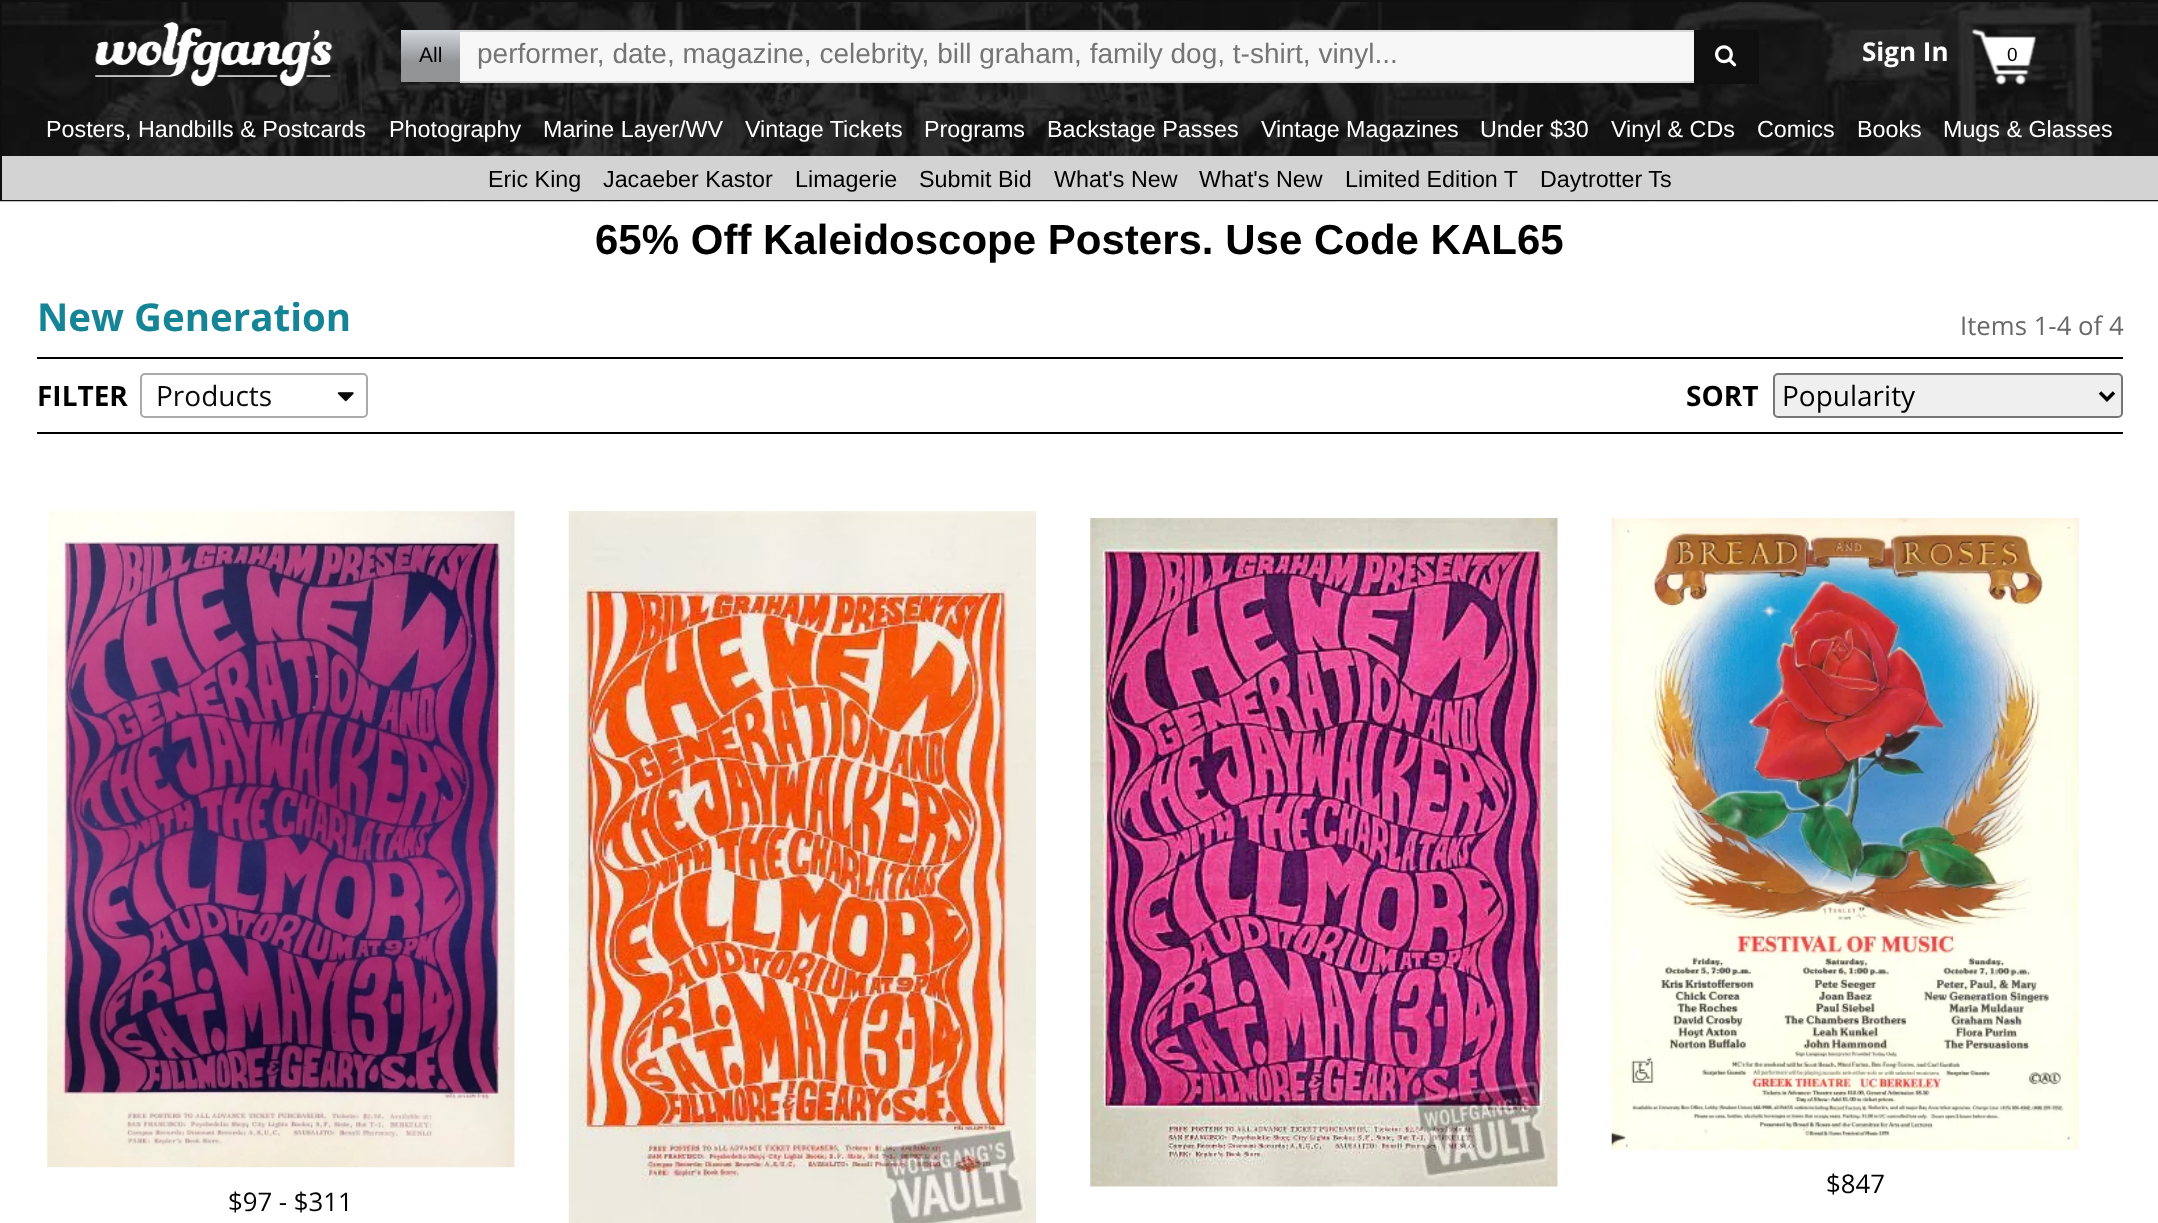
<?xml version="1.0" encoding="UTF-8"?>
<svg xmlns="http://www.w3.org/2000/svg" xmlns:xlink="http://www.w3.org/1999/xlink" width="2158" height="1223">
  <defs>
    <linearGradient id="g1" gradientUnits="userSpaceOnUse" x1="431" y1="30" x2="431" y2="82"><stop offset="0" stop-color="#d2d7dd" /><stop offset="0.61" stop-color="#929496" /></linearGradient>
  </defs>
  <rect width="100%" height="100%" fill="#ffffff" />
  <image x="0" y="2" width="2158" height="200" xlink:href="image1.png" />
  <rect x="1" y="1" width="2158" height="199" fill="none" stroke="#0f0f0f" stroke-width="2" />
  <image x="95" y="22" width="238" height="65" xlink:href="image2.png" />
  <rect x="401" y="30" width="59" height="52" fill="url(#g1)" />
  <rect x="460" y="32" width="1234" height="49" fill="#f7f7f7" />
  <rect x="460" y="30" width="1234" height="2" fill="#d7d7d7" />
  <rect x="460" y="81" width="1234" height="2" fill="#d7d7d7" />
  <rect x="1694" y="30" width="65" height="54" fill="#0f0f0f" />
  <image x="1715" y="45" width="22" height="22" xlink:href="image3.png" />
  <image x="1971" y="29" width="65" height="56" xlink:href="image4.png" />
  <rect x="2" y="156" width="2156" height="44" fill="#d3d3d3" />
  <rect x="37" y="357" width="2086" height="2" fill="#000000" />
  <rect x="37" y="432" width="2086" height="2" fill="#000000" />
  <rect x="141" y="374" width="226" height="43" rx="4" fill="none" stroke="#aaaaaa" stroke-width="2" />
  <image x="337" y="392" width="17" height="10" xlink:href="image5.png" />
  <rect x="1774" y="374" width="348" height="43" rx="4" fill="#efefef" stroke="#767676" stroke-width="2" />
  <path d="M 2100 392.5 l 7 7 l 7 -7" fill="none" stroke="#000000" stroke-width="3.5" />
  <image x="568" y="511" width="468" height="712" xlink:href="image6.png" />
  <image x="1090" y="518" width="468" height="669" xlink:href="image7.png" />
  <image x="1611" y="518" width="468" height="632" xlink:href="image8.png" />
  <image x="47" y="511" width="468" height="657" xlink:href="image9.png" />
  <text x="419" y="62" style="font-family: Liberation Sans; font-size: 21px; fill: #000000">All</text>
  <text x="477" y="63" style="font-family: Liberation Sans; font-size: 28px; fill: #757575">performer, date, magazine, celebrity, bill graham, family dog, t-shirt, vinyl...</text>
  <text x="1862" y="61" style="font-family: Open Sans; font-size: 26px; font-weight: bold; fill: #ffffff">Sign In</text>
  <text x="2007" y="61" style="font-family: Liberation Sans; font-size: 19px; fill: #000000">0</text>
  <text x="46" y="137" style="font-family: Liberation Sans; font-size: 23.3px; fill: #ffffff">Posters, Handbills &amp; Postcards</text>
  <text x="389" y="137" style="font-family: Liberation Sans; font-size: 23.3px; fill: #ffffff">Photography</text>
  <text x="543" y="137" style="font-family: Liberation Sans; font-size: 23.3px; fill: #ffffff">Marine Layer/WV</text>
  <text x="745" y="137" style="font-family: Liberation Sans; font-size: 23.3px; fill: #ffffff">Vintage Tickets</text>
  <text x="924" y="137" style="font-family: Liberation Sans; font-size: 23.3px; fill: #ffffff">Programs</text>
  <text x="1047" y="137" style="font-family: Liberation Sans; font-size: 23.3px; fill: #ffffff">Backstage Passes</text>
  <text x="1261" y="137" style="font-family: Liberation Sans; font-size: 23.3px; fill: #ffffff">Vintage Magazines</text>
  <text x="1480" y="137" style="font-family: Liberation Sans; font-size: 23.3px; fill: #ffffff">Under $30</text>
  <text x="1611" y="137" style="font-family: Liberation Sans; font-size: 23.3px; fill: #ffffff">Vinyl &amp; CDs</text>
  <text x="1757" y="137" style="font-family: Liberation Sans; font-size: 23.3px; fill: #ffffff">Comics</text>
  <text x="1857" y="137" style="font-family: Liberation Sans; font-size: 23.3px; fill: #ffffff">Books</text>
  <text x="1943" y="137" style="font-family: Liberation Sans; font-size: 23.3px; fill: #ffffff">Mugs &amp; Glasses</text>
  <text x="488" y="187" style="font-family: Liberation Sans; font-size: 23.3px; fill: #000000">Eric King</text>
  <text x="603" y="187" style="font-family: Liberation Sans; font-size: 23.3px; fill: #000000">Jacaeber Kastor</text>
  <text x="795" y="187" style="font-family: Liberation Sans; font-size: 23.3px; fill: #000000">Limagerie</text>
  <text x="919" y="187" style="font-family: Liberation Sans; font-size: 23.3px; fill: #000000">Submit Bid</text>
  <text x="1054" y="187" style="font-family: Liberation Sans; font-size: 23.3px; fill: #000000">What's New</text>
  <text x="1199" y="187" style="font-family: Liberation Sans; font-size: 23.3px; fill: #000000">What's New</text>
  <text x="1345" y="187" style="font-family: Liberation Sans; font-size: 23.3px; fill: #000000">Limited Edition T</text>
  <text x="1540" y="187" style="font-family: Liberation Sans; font-size: 23.3px; fill: #000000">Daytrotter Ts</text>
  <text x="595" y="254" style="font-family: Liberation Sans; font-size: 42px; font-weight: bold; fill: #000000">65% Off Kaleidoscope Posters. Use Code KAL65</text>
  <text x="37" y="331" style="font-family: Open Sans; font-size: 38.5px; font-weight: bold; fill: #158496">New Generation</text>
  <text x="1960" y="335" style="font-family: Open Sans; font-size: 25.75px; fill: #686868">Items 1-4 of 4</text>
  <text x="37" y="406" style="font-family: Open Sans; font-size: 28px; font-weight: bold; fill: #000000">FILTER</text>
  <text x="156" y="406" style="font-family: Open Sans; font-size: 28px; fill: #0a0a0a">Products</text>
  <text x="1686" y="406" style="font-family: Open Sans; font-size: 28px; font-weight: bold; fill: #000000">SORT</text>
  <text x="1782" y="406" style="font-family: Open Sans; font-size: 28px; fill: #000000">Popularity</text>
  <text x="1826" y="1193" style="font-family: Open Sans; font-size: 25.75px; fill: #000000">$847</text>
  <text x="228" y="1211" style="font-family: Open Sans; font-size: 25.75px; fill: #000000">$97 - $311</text>
</svg>
